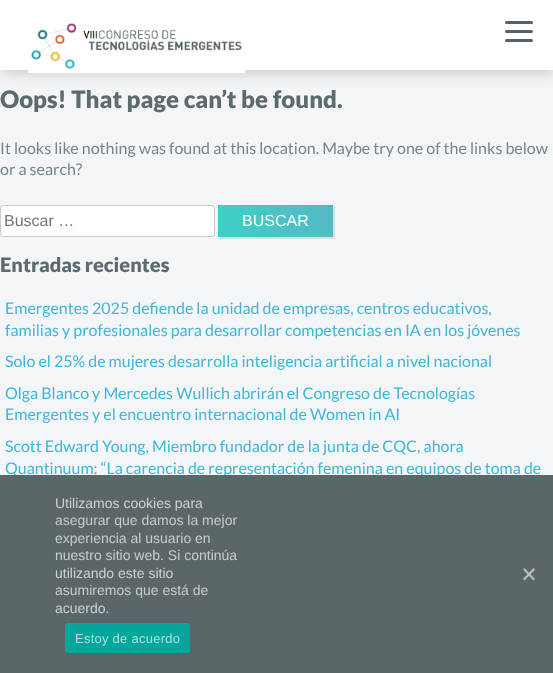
<?xml version="1.0" encoding="UTF-8"?>
<svg xmlns="http://www.w3.org/2000/svg" xmlns:xlink="http://www.w3.org/1999/xlink" width="553" height="673">
  <defs>
    <linearGradient id="g1" gradientUnits="userSpaceOnUse" x1="218" y1="221" x2="333" y2="221"><stop offset="0" stop-color="#3dcfc6" /><stop offset="1" stop-color="#56b8c4" /></linearGradient>
  </defs>
  <rect width="100%" height="100%" fill="#f4f5f7" />
  <rect x="2" y="2" width="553" height="70" fill="#000000" fill-opacity="0.2" filter="blur(7.5px)" />
  <rect width="553" height="70" fill="#ffffff" />
  <image x="28" y="23" width="217" height="51" xlink:href="image1.png" />
  <rect x="505" y="30" width="28" height="3" rx="1.5" fill="#516366" />
  <rect x="505" y="21" width="28" height="3" rx="1.5" fill="#516366" />
  <rect x="505" y="39" width="28" height="3" rx="1.5" fill="#516366" />
  <rect x="0.5" y="205.5" width="214" height="31" rx="2.5" fill="#ffffff" stroke="#cccccc" />
  <path d="M 220 237 v 2 h 115 v -32 h -2 v 30 z" fill="#dcddde" />
  <rect x="218" y="205" width="115" height="32" fill="url(#g1)" />
  <rect x="0.5" y="668.5" width="141" height="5" fill="#efefef" stroke="#cccccc" />
  <text x="0" y="108" style="font-family: Lato; font-size: 24px; font-weight: 900; fill: #5e6b6e">Oops! That page can’t be found.</text>
  <text x="0" y="154" style="font-family: Lato; font-size: 16px; fill: #758689">It looks like nothing was found at this location. Maybe try one of the links below</text>
  <text x="0" y="175" style="font-family: Lato; font-size: 16px; fill: #758689">or a search?</text>
  <text x="4" y="226" style="font-family: Liberation Sans; font-size: 16px; fill: #757575">Buscar …</text>
  <text x="242" y="226" style="font-family: Liberation Sans; font-size: 16px; fill: #ffffff">BUSCAR</text>
  <text x="0" y="272" style="font-family: Lato; font-size: 20px; font-weight: 900; fill: #5e6b6e">Entradas recientes</text>
  <text x="5" y="314" style="font-family: Lato; font-size: 16px; fill: #40b7d9">Emergentes 2025 defiende la unidad de empresas, centros educativos,</text>
  <text x="5" y="336" style="font-family: Lato; font-size: 16px; fill: #40b7d9">familias y profesionales para desarrollar competencias en IA en los jóvenes</text>
  <text x="5" y="367" style="font-family: Lato; font-size: 16px; fill: #40b7d9">Solo el 25% de mujeres desarrolla inteligencia artificial a nivel nacional</text>
  <text x="5" y="399" style="font-family: Lato; font-size: 16px; fill: #40b7d9">Olga Blanco y Mercedes Wullich abrirán el Congreso de Tecnologías</text>
  <text x="5" y="420" style="font-family: Lato; font-size: 16px; fill: #40b7d9">Emergentes y el encuentro internacional de Women in AI</text>
  <text x="5" y="452" style="font-family: Lato; font-size: 16px; fill: #40b7d9">Scott Edward Young, Miembro fundador de la junta de CQC, ahora</text>
  <text x="5" y="474" style="font-family: Lato; font-size: 16px; fill: #40b7d9">Quantinuum: “La carencia de representación femenina en equipos de toma de</text>
  <rect y="475" width="553" height="198" fill="#525e60" fill-opacity="0.95" />
  <text x="55" y="508" style="font-family: Liberation Sans; font-size: 14px; fill: #cdd1d2">Utilizamos cookies para</text>
  <text x="55" y="525" style="font-family: Liberation Sans; font-size: 14px; fill: #c7cbcc">asegurar que damos la mejor</text>
  <text x="55" y="543" style="font-family: Liberation Sans; font-size: 14px; fill: #c7cbcc">experiencia al usuario en</text>
  <text x="55" y="560" style="font-family: Liberation Sans; font-size: 14px; fill: #c7cbcc">nuestro sitio web. Si continúa</text>
  <text x="55" y="578" style="font-family: Liberation Sans; font-size: 14px; fill: #cdd1d2">utilizando este sitio</text>
  <text x="55" y="595" style="font-family: Liberation Sans; font-size: 14px; fill: #c7cbcc">asumiremos que está de</text>
  <text x="55" y="613" style="font-family: Liberation Sans; font-size: 14px; fill: #cdd1d2">acuerdo.</text>
  <path d="M 533.5 568 l 1.5 1.5 l -10.5 11 l -1.5 -1.5 z" fill="#bdbdbe" />
  <path d="M 523 569.5 l 1.5 -1.5 l 10.5 11 l -1.5 1.5 z" fill="#bdbdbe" />
  <rect x="65" y="623" width="125" height="30" rx="3" fill="#00a99d" fill-opacity="0.95" />
  <text x="75" y="643" style="font-family: Liberation Sans; font-size: 13px; letter-spacing: 0.25px; fill: #abe1dd">Estoy de acuerdo</text>
</svg>
